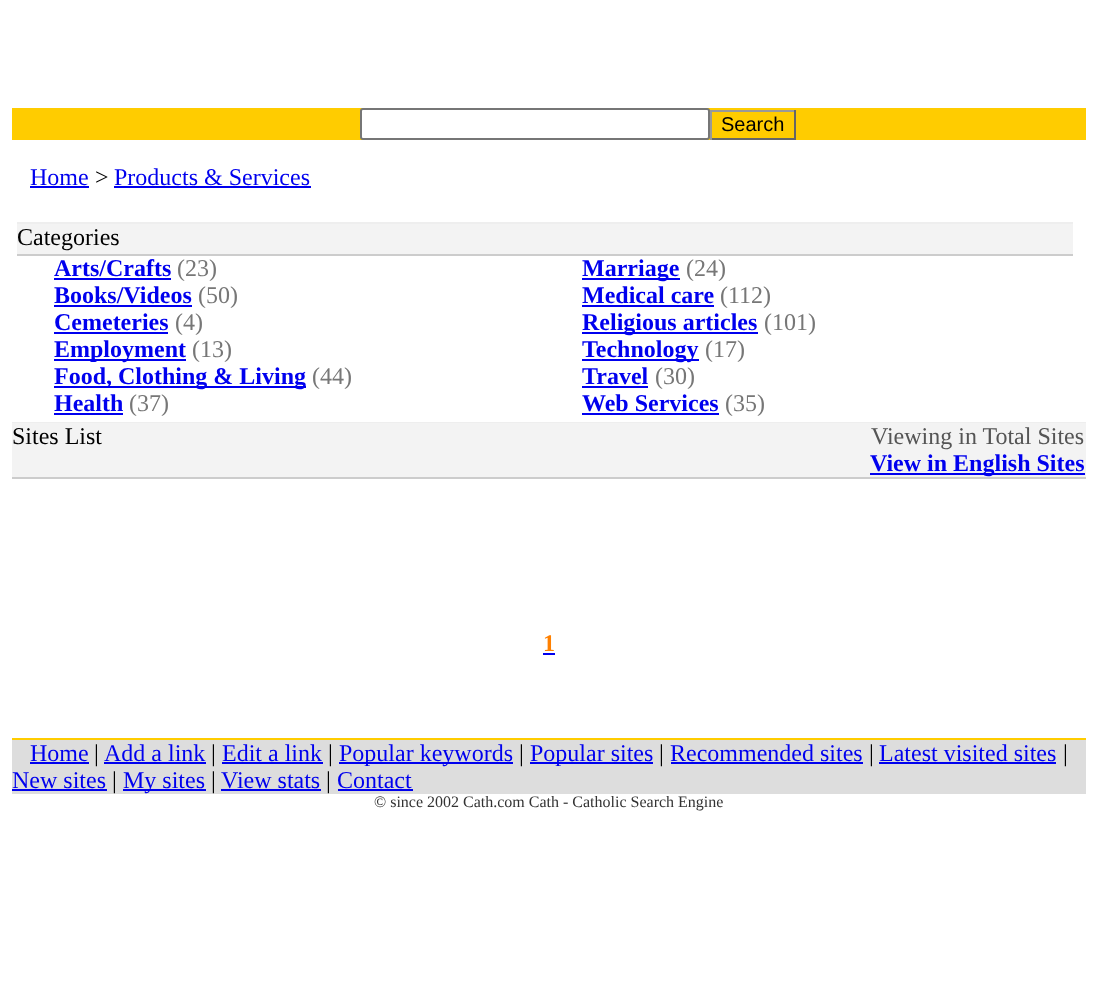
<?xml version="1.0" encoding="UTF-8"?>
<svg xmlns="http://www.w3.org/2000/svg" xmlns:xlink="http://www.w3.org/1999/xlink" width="1098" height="993">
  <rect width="100%" height="100%" fill="#ffffff" />
  <rect x="12" y="108" width="1074" height="32" fill="#ffcc00" />
  <rect x="361" y="109" width="348" height="30" rx="2" fill="#ffffff" stroke="#767676" stroke-width="2" />
  <rect x="710" y="110" width="85" height="2" fill="#999999" />
  <rect x="794" y="110" width="2" height="30" fill="#666666" />
  <rect x="710" y="138" width="85" height="2" fill="#666666" />
  <rect x="710" y="110" width="2" height="30" fill="#999999" />
  <rect x="30" y="186" width="59" height="2" fill="#0000ee" />
  <rect x="114" y="186" width="197" height="2" fill="#0000ee" />
  <rect x="17" y="222" width="1056" height="2" fill="#eeeeee" />
  <rect x="17" y="224" width="1056" height="30" fill="#f3f3f3" />
  <rect x="17" y="254" width="1056" height="2" fill="#cccccc" />
  <rect x="54" y="278" width="117" height="2" fill="#0000ee" />
  <rect x="54" y="305" width="138" height="2" fill="#0000ee" />
  <rect x="54" y="332" width="114" height="2" fill="#0000ee" />
  <rect x="54" y="359" width="132" height="2" fill="#0000ee" />
  <rect x="54" y="386" width="252" height="2" fill="#0000ee" />
  <rect x="54" y="413" width="69" height="2" fill="#0000ee" />
  <rect x="582" y="278" width="98" height="2" fill="#0000ee" />
  <rect x="582" y="305" width="132" height="2" fill="#0000ee" />
  <rect x="582" y="332" width="176" height="2" fill="#0000ee" />
  <rect x="582" y="359" width="117" height="2" fill="#0000ee" />
  <rect x="582" y="386" width="66" height="2" fill="#0000ee" />
  <rect x="582" y="413" width="137" height="2" fill="#0000ee" />
  <rect x="12" y="422" width="1074" height="1" fill="#eeeeee" />
  <rect x="12" y="423" width="1074" height="54" fill="#f3f3f3" />
  <rect x="870" y="473" width="215" height="2" fill="#0000ee" />
  <rect x="12" y="477" width="1074" height="2" fill="#cccccc" />
  <rect x="543" y="653" width="12" height="2" fill="#0000ee" />
  <rect x="12" y="738" width="1074" height="2" fill="#ffcc00" />
  <rect x="12" y="740" width="1074" height="54" fill="#dddddd" />
  <rect x="30" y="762" width="59" height="2" fill="#0000ee" />
  <rect x="104" y="762" width="102" height="2" fill="#0000ee" />
  <rect x="222" y="762" width="101" height="2" fill="#0000ee" />
  <rect x="339" y="762" width="174" height="2" fill="#0000ee" />
  <rect x="530" y="762" width="123" height="2" fill="#0000ee" />
  <rect x="671" y="762" width="192" height="2" fill="#0000ee" />
  <rect x="879" y="762" width="177" height="2" fill="#0000ee" />
  <rect x="12" y="789" width="95" height="2" fill="#0000ee" />
  <rect x="123" y="789" width="83" height="2" fill="#0000ee" />
  <rect x="221" y="789" width="100" height="2" fill="#0000ee" />
  <rect x="338" y="789" width="75" height="2" fill="#0000ee" />
  <text x="721" y="131" style="font-family: Liberation Sans; font-size: 20px; fill: #000000">Search</text>
  <text x="30" y="185" style="font-family: Liberation Serif; font-size: 24px; fill: #0000ee">Home</text>
  <text x="95" y="185" style="font-family: Liberation Serif; font-size: 24px; fill: #000000">&gt;</text>
  <text x="114" y="185" style="font-family: Liberation Serif; font-size: 24px; fill: #0000ee">Products &amp; Services</text>
  <text x="17" y="245" style="font-family: Liberation Serif; font-size: 24px; fill: #000000">Categories</text>
  <text x="54" y="276" style="font-family: Liberation Serif; font-size: 24px; font-weight: bold; fill: #0000ee">Arts/Crafts</text>
  <text x="177" y="276" style="font-family: Liberation Serif; font-size: 24px; fill: #777777">(23)</text>
  <text x="54" y="303" style="font-family: Liberation Serif; font-size: 24px; font-weight: bold; fill: #0000ee">Books/Videos</text>
  <text x="198" y="303" style="font-family: Liberation Serif; font-size: 24px; fill: #777777">(50)</text>
  <text x="54" y="330" style="font-family: Liberation Serif; font-size: 24px; font-weight: bold; fill: #0000ee">Cemeteries</text>
  <text x="175" y="330" style="font-family: Liberation Serif; font-size: 24px; fill: #777777">(4)</text>
  <text x="54" y="357" style="font-family: Liberation Serif; font-size: 24px; font-weight: bold; fill: #0000ee">Employment</text>
  <text x="192" y="357" style="font-family: Liberation Serif; font-size: 24px; fill: #777777">(13)</text>
  <text x="54" y="384" style="font-family: Liberation Serif; font-size: 24px; font-weight: bold; fill: #0000ee">Food, Clothing &amp; Living</text>
  <text x="312" y="384" style="font-family: Liberation Serif; font-size: 24px; fill: #777777">(44)</text>
  <text x="54" y="411" style="font-family: Liberation Serif; font-size: 24px; font-weight: bold; fill: #0000ee">Health</text>
  <text x="129" y="411" style="font-family: Liberation Serif; font-size: 24px; fill: #777777">(37)</text>
  <text x="582" y="276" style="font-family: Liberation Serif; font-size: 24px; font-weight: bold; fill: #0000ee">Marriage</text>
  <text x="686" y="276" style="font-family: Liberation Serif; font-size: 24px; fill: #777777">(24)</text>
  <text x="582" y="303" style="font-family: Liberation Serif; font-size: 24px; font-weight: bold; fill: #0000ee">Medical care</text>
  <text x="720" y="303" style="font-family: Liberation Serif; font-size: 24px; fill: #777777">(112)</text>
  <text x="582" y="330" style="font-family: Liberation Serif; font-size: 24px; font-weight: bold; fill: #0000ee">Religious articles</text>
  <text x="764" y="330" style="font-family: Liberation Serif; font-size: 24px; fill: #777777">(101)</text>
  <text x="582" y="357" style="font-family: Liberation Serif; font-size: 24px; font-weight: bold; fill: #0000ee">Technology</text>
  <text x="705" y="357" style="font-family: Liberation Serif; font-size: 24px; fill: #777777">(17)</text>
  <text x="582" y="384" style="font-family: Liberation Serif; font-size: 24px; font-weight: bold; fill: #0000ee">Travel</text>
  <text x="655" y="384" style="font-family: Liberation Serif; font-size: 24px; fill: #777777">(30)</text>
  <text x="582" y="411" style="font-family: Liberation Serif; font-size: 24px; font-weight: bold; fill: #0000ee">Web Services</text>
  <text x="725" y="411" style="font-family: Liberation Serif; font-size: 24px; fill: #777777">(35)</text>
  <text x="12" y="444" style="font-family: Liberation Serif; font-size: 24px; fill: #000000">Sites List</text>
  <text x="871" y="444" style="font-family: Liberation Serif; font-size: 24px; fill: #555555">Viewing in Total Sites</text>
  <text x="870" y="471" style="font-family: Liberation Serif; font-size: 24px; font-weight: bold; fill: #0000ee">View in English Sites</text>
  <text x="543" y="651" style="font-family: Liberation Serif; font-size: 24px; font-weight: bold; fill: #ff8000">1</text>
  <text x="30" y="761" style="font-family: Liberation Serif; font-size: 24px; fill: #0000ee">Home</text>
  <text x="94" y="761" style="font-family: Liberation Serif; font-size: 24px; fill: #000000">|</text>
  <text x="104" y="761" style="font-family: Liberation Serif; font-size: 24px; fill: #0000ee">Add a link</text>
  <text x="211" y="761" style="font-family: Liberation Serif; font-size: 24px; fill: #000000">|</text>
  <text x="222" y="761" style="font-family: Liberation Serif; font-size: 24px; fill: #0000ee">Edit a link</text>
  <text x="328" y="761" style="font-family: Liberation Serif; font-size: 24px; fill: #000000">|</text>
  <text x="339" y="761" style="font-family: Liberation Serif; font-size: 24px; fill: #0000ee">Popular keywords</text>
  <text x="519" y="761" style="font-family: Liberation Serif; font-size: 24px; fill: #000000">|</text>
  <text x="530" y="761" style="font-family: Liberation Serif; font-size: 24px; fill: #0000ee">Popular sites</text>
  <text x="659" y="761" style="font-family: Liberation Serif; font-size: 24px; fill: #000000">|</text>
  <text x="670" y="761" style="font-family: Liberation Serif; font-size: 24px; fill: #0000ee">Recommended sites</text>
  <text x="869" y="761" style="font-family: Liberation Serif; font-size: 24px; fill: #000000">|</text>
  <text x="879" y="761" style="font-family: Liberation Serif; font-size: 24px; fill: #0000ee">Latest visited sites</text>
  <text x="1063" y="761" style="font-family: Liberation Serif; font-size: 24px; fill: #000000">|</text>
  <text x="12" y="788" style="font-family: Liberation Serif; font-size: 24px; fill: #0000ee">New sites</text>
  <text x="112" y="788" style="font-family: Liberation Serif; font-size: 24px; fill: #000000">|</text>
  <text x="123" y="788" style="font-family: Liberation Serif; font-size: 24px; fill: #0000ee">My sites</text>
  <text x="211" y="788" style="font-family: Liberation Serif; font-size: 24px; fill: #000000">|</text>
  <text x="221" y="788" style="font-family: Liberation Serif; font-size: 24px; fill: #0000ee">View stats</text>
  <text x="326" y="788" style="font-family: Liberation Serif; font-size: 24px; fill: #000000">|</text>
  <text x="337" y="788" style="font-family: Liberation Serif; font-size: 24px; fill: #0000ee">Contact</text>
  <text x="374" y="807" style="font-family: Liberation Serif; font-size: 16px; fill: #333333">© since 2002 Cath.com Cath - Catholic Search Engine</text>
</svg>
